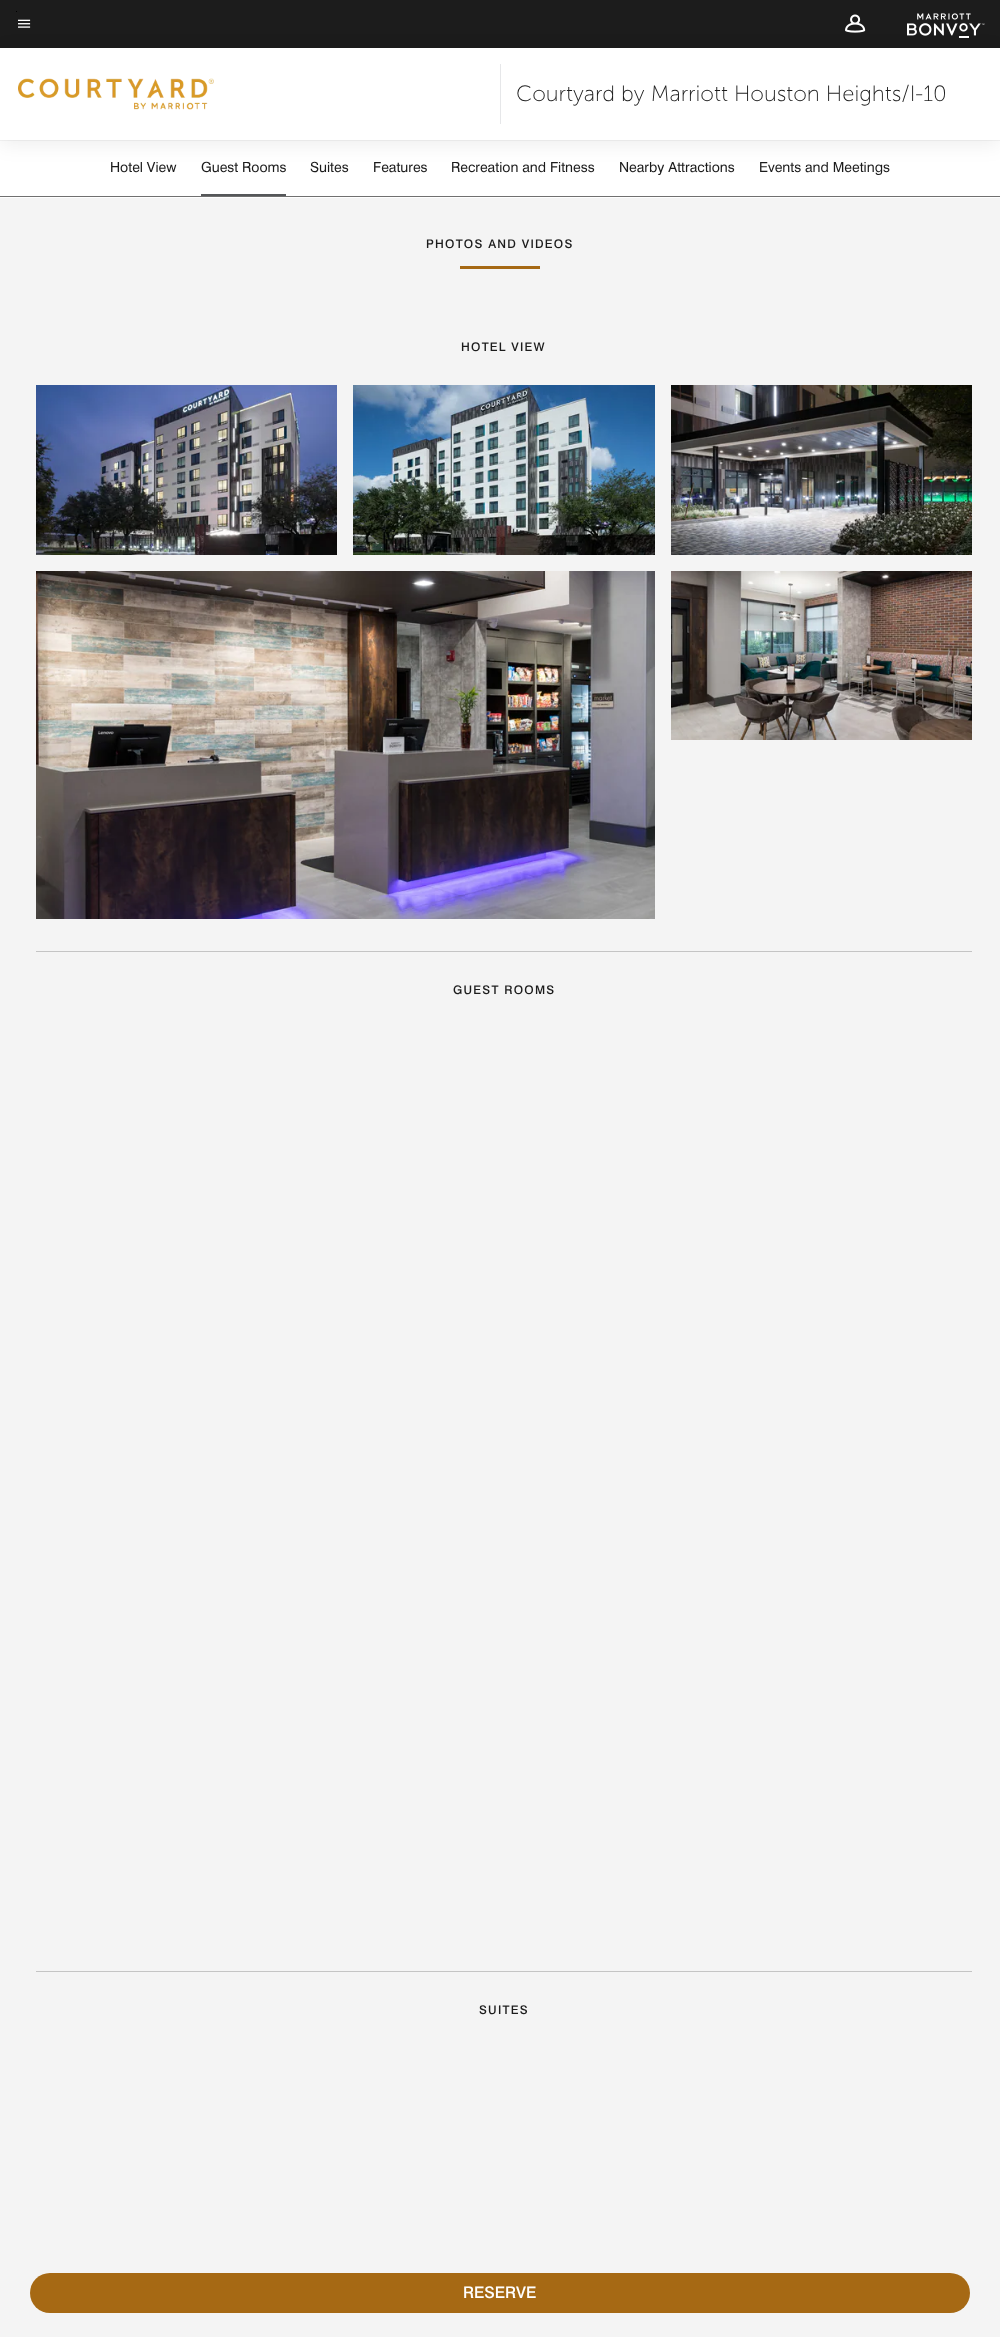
<?xml version="1.0" encoding="UTF-8"?>
<svg xmlns="http://www.w3.org/2000/svg" xmlns:xlink="http://www.w3.org/1999/xlink" width="1000" height="2337">
  <defs>
    <clipPath id="clip1"><path d="M 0 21 h 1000 v 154 h -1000 z m 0 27 h 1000 v 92 h -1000 z" clip-rule="evenodd" /></clipPath>
  </defs>
  <rect width="100%" height="100%" fill="#ffffff" />
  <rect width="1000" height="48" fill="#1c1c1c" />
  <rect x="16" y="11" width="1" height="1" fill="#000000" />
  <image x="18" y="19" width="13" height="9" xlink:href="image1.png" />
  <image x="845" y="14" width="21" height="19" xlink:href="image2.png" />
  <rect y="140" width="1000" height="1" fill="#f4f4f4" />
  <g clip-path="url(#clip1)">
    <rect y="52" width="1000" height="92" fill="#000000" fill-opacity="0.07" filter="blur(10px)" />
  </g>
  <image x="907" y="13" width="78" height="23" xlink:href="image3.png" />
  <rect x="959" y="36" width="10" height="2" fill="#ffffff" />
  <rect x="500" y="64" width="1" height="60" fill="#e6e7e9" />
  <image x="18" y="78" width="196" height="32" xlink:href="image4.png" />
  <rect y="198" width="1000" height="2139" fill="#f4f4f4" />
  <rect x="30" y="2273" width="940" height="40" rx="20" fill="#a66914" />
  <rect x="201" y="194" width="85" height="2" fill="#555759" />
  <rect y="196" width="1000" height="1" fill="#707070" />
  <rect x="460" y="266" width="80" height="3" fill="#a66914" />
  <image x="36" y="385" width="301" height="170" xlink:href="image5.png" />
  <image x="353" y="385" width="302" height="170" xlink:href="image6.png" />
  <image x="671" y="385" width="301" height="170" xlink:href="image7.png" />
  <image x="36" y="571" width="619" height="348" xlink:href="image8.png" />
  <image x="671" y="571" width="301" height="169" xlink:href="image9.png" />
  <rect x="36" y="951" width="936" height="1" fill="#c4c4c4" />
  <rect x="36" y="1971" width="936" height="1" fill="#c4c4c4" />
  <text x="516" y="101" style="font-family: Museo Sans; font-size: 22px; font-weight: 200; fill: #1c1c1c">Courtyard by Marriott Houston Heights/I-10</text>
  <text x="463" y="2298" style="font-family: 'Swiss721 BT'; font-size: 16px; font-weight: 500; fill: #ffffff">RESERVE</text>
  <text x="110" y="172" style="font-family: 'Swiss721 BT'; font-size: 14px; fill: #1c1c1c">Hotel View</text>
  <text x="201" y="172" style="font-family: 'Swiss721 BT'; font-size: 14px; fill: #1c1c1c">Guest Rooms</text>
  <text x="310" y="172" style="font-family: 'Swiss721 BT'; font-size: 14px; fill: #1c1c1c">Suites</text>
  <text x="373" y="172" style="font-family: 'Swiss721 BT'; font-size: 14px; fill: #1c1c1c">Features</text>
  <text x="451" y="172" style="font-family: 'Swiss721 BT'; font-size: 14px; fill: #1c1c1c">Recreation and Fitness</text>
  <text x="619" y="172" style="font-family: 'Swiss721 BT'; font-size: 14px; fill: #1c1c1c">Nearby Attractions</text>
  <text x="759" y="172" style="font-family: 'Swiss721 BT'; font-size: 14px; fill: #1c1c1c">Events and Meetings</text>
  <text x="426" y="248" style="font-family: 'Swiss721 BT'; font-size: 12px; font-weight: 500; letter-spacing: 1.25px; fill: #1c1c1c">PHOTOS AND VIDEOS</text>
  <text x="461" y="351" style="font-family: 'Swiss721 BT'; font-size: 12px; font-weight: 500; letter-spacing: 1.25px; fill: #1c1c1c">HOTEL VIEW</text>
  <text x="453" y="994" style="font-family: 'Swiss721 BT'; font-size: 12px; font-weight: 500; letter-spacing: 1.25px; fill: #1c1c1c">GUEST ROOMS</text>
  <text x="479" y="2014" style="font-family: 'Swiss721 BT'; font-size: 12px; font-weight: 500; letter-spacing: 1.25px; fill: #1c1c1c">SUITES</text>
</svg>
